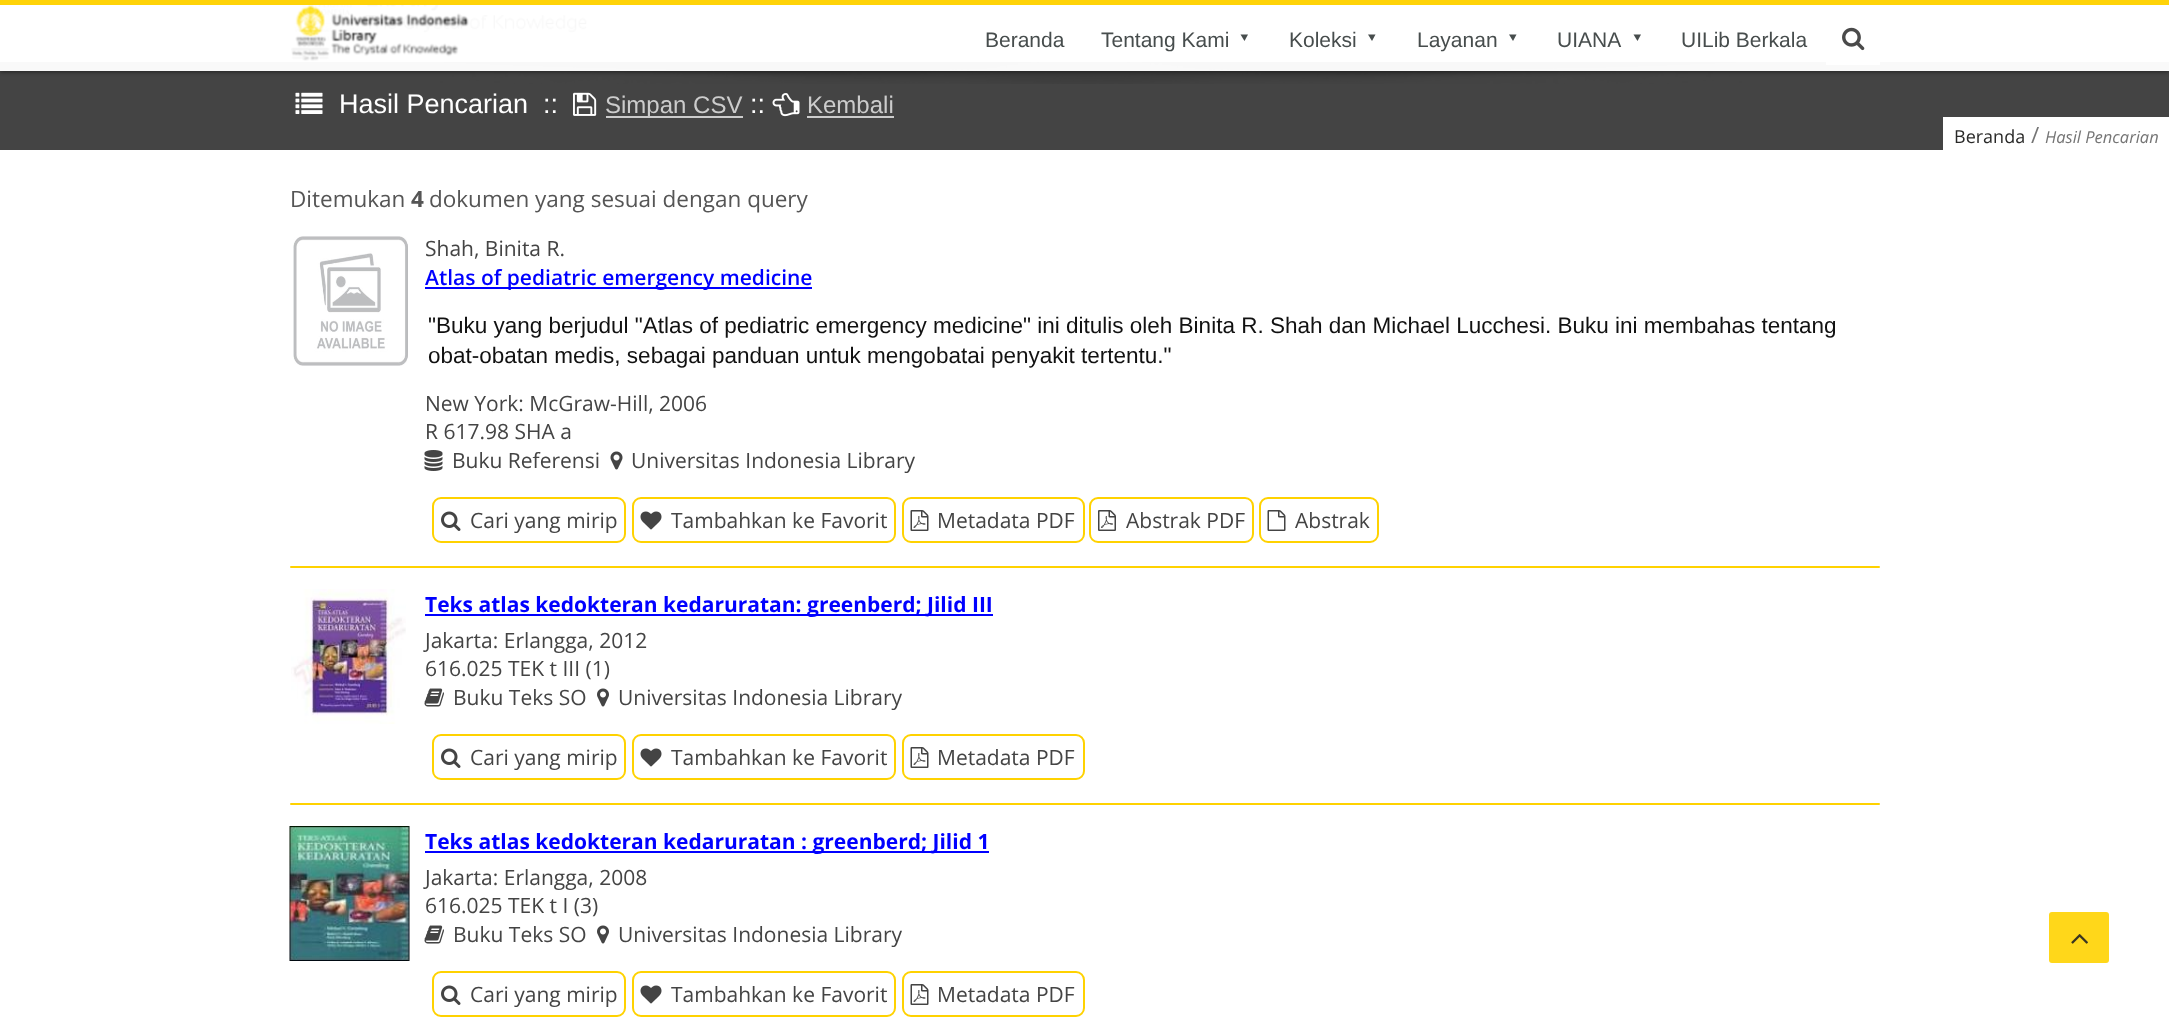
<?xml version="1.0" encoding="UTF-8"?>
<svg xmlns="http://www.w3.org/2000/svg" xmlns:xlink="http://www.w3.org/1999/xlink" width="2169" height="1023">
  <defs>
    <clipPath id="clip1"><path d="M 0 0 h 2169 v 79 h -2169 z m 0 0 h 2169 v 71 h -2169 z" clip-rule="evenodd" /></clipPath>
  </defs>
  <rect width="100%" height="100%" fill="#ffffff" />
  <rect y="60" width="2169" height="2" fill="#f2f2f2" />
  <image x="292" y="0" width="296" height="42" xlink:href="image3.png" />
  <image x="1859" y="0" width="4" height="2" xlink:href="image4.png" />
  <rect y="62" width="2169" height="88" fill="#444444" />
  <image x="387" y="62" width="1406" height="22" xlink:href="image5.png" />
  <g clip-path="url(#clip1)">
    <rect y="2" width="2169" height="70" fill="#000000" fill-opacity="0.48" filter="blur(2px)" />
  </g>
  <rect width="2169" height="71" fill="#ffffff" fill-opacity="0.97" />
  <rect width="2169" height="5" fill="#ffd200" fill-opacity="0.97" />
  <image x="291" y="5" width="178" height="56" xlink:href="image1.png" />
  <path d="M 1248 34.5 l -3.5 6.5 l -4 -6.5 z" fill="#474d4d" />
  <path d="M 1375.5 34.5 l -3.5 6.5 l -4 -6.5 z" fill="#474d4d" />
  <path d="M 1516.5 34.5 l -3.5 6.5 l -4 -6.5 z" fill="#474d4d" />
  <path d="M 1641 34.5 l -3.5 6.5 l -4 -6.5 z" fill="#474d4d" />
  <rect x="1826" y="62" width="54" height="3" fill="#ffffff" fill-opacity="0.97" />
  <image x="1842" y="27" width="23" height="24" xlink:href="image2.png" />
  <image x="295" y="92" width="28" height="22" xlink:href="image6.png" />
  <image x="573" y="92" width="24" height="24" xlink:href="image7.png" />
  <rect x="606" y="116" width="137" height="2" fill="#cccccc" />
  <image x="772" y="93" width="28" height="24" xlink:href="image8.png" />
  <rect x="807" y="116" width="87" height="2" fill="#cccccc" />
  <rect x="1943" y="117" width="226" height="33" fill="#ffffff" />
  <image x="293" y="236" width="115" height="130" xlink:href="image9.png" />
  <rect x="425" y="287" width="387" height="2" fill="#0000ff" />
  <image x="424" y="450" width="19" height="21" xlink:href="image10.png" />
  <image x="610" y="451" width="13" height="19" xlink:href="image11.png" />
  <rect x="433" y="498" width="192" height="44" rx="8" fill="none" stroke="#ffd200" stroke-width="2" />
  <image x="441" y="511" width="20" height="20" xlink:href="image12.png" />
  <rect x="633" y="498" width="262" height="44" rx="8" fill="none" stroke="#ffd200" stroke-width="2" />
  <image x="640" y="511" width="22" height="19" xlink:href="image13.png" />
  <rect x="903" y="498" width="181" height="44" rx="8" fill="none" stroke="#ffd200" stroke-width="2" />
  <image x="910" y="510" width="19" height="21" xlink:href="image14.png" />
  <rect x="1090" y="498" width="163" height="44" rx="8" fill="none" stroke="#ffd200" stroke-width="2" />
  <image x="1098" y="510" width="18" height="21" xlink:href="image15.png" />
  <rect x="1260" y="498" width="118" height="44" rx="8" fill="none" stroke="#ffd200" stroke-width="2" />
  <image x="1267" y="510" width="19" height="21" xlink:href="image16.png" />
  <rect x="290" y="566" width="1590" height="2" rx="1" fill="#ffd200" />
  <image x="291" y="589" width="115" height="135" xlink:href="image17.png" />
  <rect x="425" y="614" width="568" height="2" fill="#0000ff" />
  <image x="424" y="688" width="20" height="19" xlink:href="image18.png" />
  <image x="597" y="688" width="12" height="19" xlink:href="image19.png" />
  <rect x="433" y="735" width="192" height="44" rx="8" fill="none" stroke="#ffd200" stroke-width="2" />
  <image x="441" y="748" width="20" height="20" xlink:href="image12.png" />
  <rect x="633" y="735" width="262" height="44" rx="8" fill="none" stroke="#ffd200" stroke-width="2" />
  <image x="640" y="748" width="22" height="19" xlink:href="image13.png" />
  <rect x="903" y="735" width="181" height="44" rx="8" fill="none" stroke="#ffd200" stroke-width="2" />
  <image x="910" y="747" width="19" height="21" xlink:href="image14.png" />
  <rect x="290" y="803" width="1590" height="2" rx="1" fill="#ffd200" />
  <image x="289" y="826" width="121" height="135" xlink:href="image20.png" />
  <rect x="425" y="851" width="564" height="2" fill="#0000ff" />
  <image x="424" y="925" width="20" height="19" xlink:href="image18.png" />
  <image x="597" y="925" width="12" height="19" xlink:href="image19.png" />
  <rect x="433" y="972" width="192" height="44" rx="8" fill="none" stroke="#ffd200" stroke-width="2" />
  <image x="441" y="985" width="20" height="20" xlink:href="image12.png" />
  <rect x="633" y="972" width="262" height="44" rx="8" fill="none" stroke="#ffd200" stroke-width="2" />
  <image x="640" y="985" width="22" height="19" xlink:href="image13.png" />
  <rect x="903" y="972" width="181" height="44" rx="8" fill="none" stroke="#ffd200" stroke-width="2" />
  <image x="910" y="984" width="19" height="21" xlink:href="image14.png" />
  <rect x="2049" y="912" width="60" height="51" rx="3" fill="#ffd71a" />
  <image x="2071" y="934" width="17" height="10" xlink:href="image21.png" />
  <text x="985" y="47" style="font-family: Liberation Sans; font-size: 21px; fill: #474d4d">Beranda</text>
  <text x="1101" y="47" style="font-family: Liberation Sans; font-size: 21px; fill: #474d4d">Tentang Kami</text>
  <text x="1289" y="47" style="font-family: Liberation Sans; font-size: 21px; fill: #474d4d">Koleksi</text>
  <text x="1417" y="47" style="font-family: Liberation Sans; font-size: 21px; fill: #474d4d">Layanan</text>
  <text x="1557" y="47" style="font-family: Liberation Sans; font-size: 21px; fill: #474d4d">UIANA</text>
  <text x="1681" y="47" style="font-family: Liberation Sans; font-size: 21px; fill: #474d4d">UILib Berkala</text>
  <text x="339" y="113" style="font-family: Liberation Sans; font-size: 27px; fill: #ffffff" xml:space="preserve">Hasil Pencarian  ::</text>
  <text x="605" y="113" style="font-family: Liberation Sans; font-size: 24px; fill: #cccccc">Simpan CSV</text>
  <text x="750" y="113" style="font-family: Liberation Sans; font-size: 27px; fill: #ffffff">::</text>
  <text x="807" y="113" style="font-family: Liberation Sans; font-size: 24px; fill: #cccccc">Kembali</text>
  <text x="1954" y="143" style="font-family: Open Sans; font-size: 18px; fill: #292928">Beranda</text>
  <text x="2031" y="143" style="font-family: Open Sans; font-size: 22.5px; fill: #757575">/</text>
  <text x="2045" y="143" style="font-family: Open Sans; font-size: 16.5px; font-style: italic; fill: #757575">Hasil Pencarian</text>
  <text x="290" y="207" style="font-family: Open Sans; font-size: 22.5px; fill: #555555">Ditemukan</text>
  <text x="411" y="207" style="font-family: Open Sans; font-size: 22.5px; font-weight: bold; fill: #555555">4</text>
  <text x="429" y="207" style="font-family: Open Sans; font-size: 22.5px; fill: #555555">dokumen yang sesuai dengan query</text>
  <text x="425" y="256" style="font-family: Open Sans; font-size: 21px; fill: #444444">Shah, Binita R.</text>
  <text x="425" y="285" style="font-family: Open Sans; font-size: 21px; font-weight: 600; fill: #0000ff">Atlas of pediatric emergency medicine</text>
  <text x="428" y="333" style="font-family: Liberation Sans; font-size: 22.5px; fill: #111111">"Buku yang berjudul "Atlas of pediatric emergency medicine" ini ditulis oleh Binita R. Shah dan Michael Lucchesi. Buku ini membahas tentang</text>
  <text x="428" y="363" style="font-family: Liberation Sans; font-size: 22.5px; fill: #111111">obat-obatan medis, sebagai panduan untuk mengobatai penyakit tertentu."</text>
  <text x="425" y="411" style="font-family: Open Sans; font-size: 21px; fill: #444444">New York: McGraw-Hill, 2006</text>
  <text x="425" y="439" style="font-family: Open Sans; font-size: 21px; fill: #444444">R 617.98 SHA a</text>
  <text x="452" y="468" style="font-family: Open Sans; font-size: 21px; fill: #444444">Buku Referensi</text>
  <text x="631" y="468" style="font-family: Open Sans; font-size: 21px; fill: #444444">Universitas Indonesia Library</text>
  <text x="470" y="528" style="font-family: Open Sans; font-size: 21px; fill: #444444">Cari yang mirip</text>
  <text x="671" y="528" style="font-family: Open Sans; font-size: 21px; fill: #444444">Tambahkan ke Favorit</text>
  <text x="937" y="528" style="font-family: Open Sans; font-size: 21px; fill: #444444">Metadata PDF</text>
  <text x="1126" y="528" style="font-family: Open Sans; font-size: 21px; fill: #444444">Abstrak PDF</text>
  <text x="1295" y="528" style="font-family: Open Sans; font-size: 21px; fill: #444444">Abstrak</text>
  <text x="425" y="612" style="font-family: Open Sans; font-size: 21px; font-weight: bold; fill: #0000ff">Teks atlas kedokteran kedaruratan: greenberd; Jilid III</text>
  <text x="425" y="648" style="font-family: Open Sans; font-size: 21px; fill: #444444">Jakarta: Erlangga, 2012</text>
  <text x="425" y="676" style="font-family: Open Sans; font-size: 21px; fill: #444444">616.025 TEK t III (1)</text>
  <text x="453" y="705" style="font-family: Open Sans; font-size: 21px; fill: #444444">Buku Teks SO</text>
  <text x="618" y="705" style="font-family: Open Sans; font-size: 21px; fill: #444444">Universitas Indonesia Library</text>
  <text x="470" y="765" style="font-family: Open Sans; font-size: 21px; fill: #444444">Cari yang mirip</text>
  <text x="671" y="765" style="font-family: Open Sans; font-size: 21px; fill: #444444">Tambahkan ke Favorit</text>
  <text x="937" y="765" style="font-family: Open Sans; font-size: 21px; fill: #444444">Metadata PDF</text>
  <text x="425" y="849" style="font-family: Open Sans; font-size: 21px; font-weight: bold; fill: #0000ff">Teks atlas kedokteran kedaruratan : greenberd; Jilid 1</text>
  <text x="425" y="885" style="font-family: Open Sans; font-size: 21px; fill: #444444">Jakarta: Erlangga, 2008</text>
  <text x="425" y="913" style="font-family: Open Sans; font-size: 21px; fill: #444444">616.025 TEK t I (3)</text>
  <text x="453" y="942" style="font-family: Open Sans; font-size: 21px; fill: #444444">Buku Teks SO</text>
  <text x="618" y="942" style="font-family: Open Sans; font-size: 21px; fill: #444444">Universitas Indonesia Library</text>
  <text x="470" y="1002" style="font-family: Open Sans; font-size: 21px; fill: #444444">Cari yang mirip</text>
  <text x="671" y="1002" style="font-family: Open Sans; font-size: 21px; fill: #444444">Tambahkan ke Favorit</text>
  <text x="937" y="1002" style="font-family: Open Sans; font-size: 21px; fill: #444444">Metadata PDF</text>
</svg>
